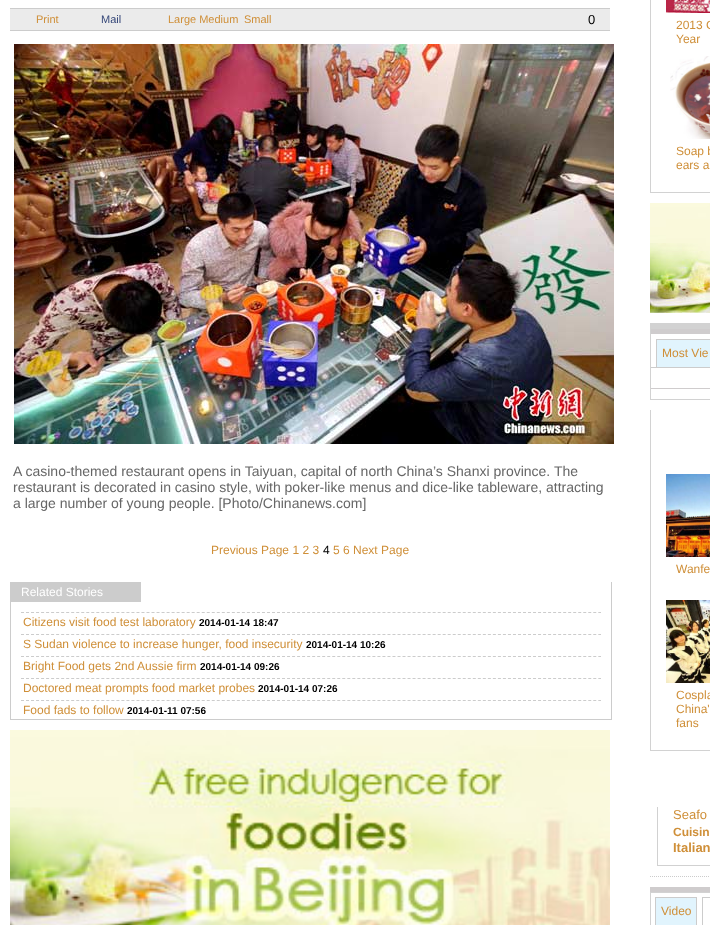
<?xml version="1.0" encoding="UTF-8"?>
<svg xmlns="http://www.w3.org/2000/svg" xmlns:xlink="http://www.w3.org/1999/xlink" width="710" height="925">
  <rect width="100%" height="100%" fill="#ffffff" />
  <rect x="10" y="9" width="600" height="21" fill="#ebebeb" />
  <rect x="10" y="8" width="600" height="1" fill="#cccccc" />
  <rect x="10" y="30" width="600" height="1" fill="#cccccc" />
  <image x="14" y="44" width="600" height="400" xlink:href="image1.png" />
  <rect x="611" y="582" width="1" height="138" fill="#cccccc" />
  <rect x="10" y="719" width="602" height="1" fill="#cccccc" />
  <rect x="10" y="582" width="1" height="138" fill="#cccccc" />
  <rect x="11" y="582" width="130" height="20" fill="#cccccc" />
  <path d="M 21 612.5 h 580" fill="none" stroke="#cccccc" stroke-dasharray="3 2.02" />
  <path d="M 21 634.5 h 580" fill="none" stroke="#cccccc" stroke-dasharray="3 2.02" />
  <path d="M 21 656.5 h 580" fill="none" stroke="#cccccc" stroke-dasharray="3 2.02" />
  <path d="M 21 678.5 h 580" fill="none" stroke="#cccccc" stroke-dasharray="3 2.02" />
  <path d="M 21 700.5 h 580" fill="none" stroke="#cccccc" stroke-dasharray="3 2.02" />
  <image x="10" y="730" width="600" height="195" xlink:href="image2.png" />
  <rect x="650" y="192" width="60" height="1" fill="#d2d2d2" />
  <rect x="650" width="1" height="193" fill="#d2d2d2" />
  <image x="666" y="0" width="44" height="13" xlink:href="image3.png" />
  <image x="670" y="56" width="40" height="83" xlink:href="image4.png" />
  <image x="650" y="203" width="60" height="110" xlink:href="image5.png" />
  <rect x="650" y="323" width="60" height="6" fill="#d2d2d2" />
  <rect x="650" y="399" width="60" height="1" fill="#d2d2d2" />
  <rect x="650" y="323" width="1" height="77" fill="#d2d2d2" />
  <rect x="651" y="329" width="59" height="5" fill="#cfcccd" />
  <rect x="651" y="388" width="59" height="1" fill="#cfcccd" />
  <rect x="651" y="367" width="59" height="1" fill="#cccccc" />
  <rect x="657" y="340" width="53" height="27" fill="#e1f4fd" />
  <rect x="656" y="339" width="54" height="1" fill="#cccccc" />
  <rect x="656" y="339" width="1" height="28" fill="#cccccc" />
  <rect x="650" y="750" width="60" height="1" fill="#d2d2d2" />
  <rect x="650" y="410" width="1" height="341" fill="#d2d2d2" />
  <image x="666" y="474" width="44" height="83" xlink:href="image6.png" />
  <image x="666" y="600" width="44" height="83" xlink:href="image7.png" />
  <path d="M 650 876.5 h 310" fill="none" stroke="#cccccc" stroke-dasharray="1 1" />
  <rect x="657" y="865" width="53" height="1" fill="#d1d1d1" />
  <rect x="657" y="807" width="1" height="59" fill="#d1d1d1" />
  <rect x="650" y="892" width="60" height="1" fill="#d2d2d2" />
  <rect x="650" y="887" width="1" height="38" fill="#d2d2d2" />
  <rect x="650" y="887" width="60" height="5" fill="#cfcccd" />
  <rect x="656" y="898" width="40" height="27" fill="#e1f4fd" />
  <rect x="655" y="897" width="42" height="1" fill="#cccccc" />
  <rect x="696" y="897" width="1" height="28" fill="#cccccc" />
  <rect x="655" y="897" width="1" height="28" fill="#cccccc" />
  <rect x="702" y="897" width="8" height="1" fill="#cccccc" />
  <rect x="702" y="897" width="1" height="28" fill="#cccccc" />
  <text x="36" y="23" style="font-family: Liberation Sans; font-size: 11px; fill: #cf8f38">Print</text>
  <text x="101" y="23" style="font-family: Liberation Sans; font-size: 11px; fill: #344678">Mail</text>
  <text x="168" y="23" style="font-family: Liberation Sans; font-size: 11px; fill: #cf8f38">Large Medium</text>
  <text x="244" y="23" style="font-family: Liberation Sans; font-size: 11px; fill: #cf8f38">Small</text>
  <text x="588" y="24" style="font-family: Liberation Sans; font-size: 13px; fill: #000000">0</text>
  <text x="13" y="476" style="font-family: Liberation Sans; font-size: 14px; fill: #666666">A casino-themed restaurant opens in Taiyuan, capital of north China’s Shanxi province. The</text>
  <text x="13" y="492" style="font-family: Liberation Sans; font-size: 14px; fill: #666666">restaurant is decorated in casino style, with poker-like menus and dice-like tableware, attracting</text>
  <text x="13" y="508" style="font-family: Liberation Sans; font-size: 14px; fill: #666666">a large number of young people. [Photo/Chinanews.com]</text>
  <text x="211" y="554" style="font-family: Liberation Sans; font-size: 12px; fill: #cf8f38">Previous Page 1 2 3</text>
  <text x="323" y="554" style="font-family: Liberation Sans; font-size: 12px; fill: #000000">4</text>
  <text x="333" y="554" style="font-family: Liberation Sans; font-size: 12px; fill: #cf8f38">5 6 Next Page</text>
  <text x="21" y="596" style="font-family: Liberation Sans; font-size: 12px; fill: #ffffff">Related Stories</text>
  <text x="23" y="626" style="font-family: Liberation Sans; font-size: 12px; fill: #cf8f38">Citizens visit food test laboratory</text>
  <text x="199" y="626" style="font-family: Liberation Sans; font-size: 10px; font-weight: bold; fill: #000000">2014-01-14 18:47</text>
  <text x="23" y="648" style="font-family: Liberation Sans; font-size: 12px; fill: #cf8f38">S Sudan violence to increase hunger, food insecurity</text>
  <text x="306" y="648" style="font-family: Liberation Sans; font-size: 10px; font-weight: bold; fill: #000000">2014-01-14 10:26</text>
  <text x="23" y="670" style="font-family: Liberation Sans; font-size: 12px; fill: #cf8f38">Bright Food gets 2nd Aussie firm</text>
  <text x="200" y="670" style="font-family: Liberation Sans; font-size: 10px; font-weight: bold; fill: #000000">2014-01-14 09:26</text>
  <text x="23" y="692" style="font-family: Liberation Sans; font-size: 12px; fill: #cf8f38">Doctored meat prompts food market probes</text>
  <text x="258" y="692" style="font-family: Liberation Sans; font-size: 10px; font-weight: bold; fill: #000000">2014-01-14 07:26</text>
  <text x="23" y="714" style="font-family: Liberation Sans; font-size: 12px; fill: #cf8f38">Food fads to follow</text>
  <text x="127" y="714" style="font-family: Liberation Sans; font-size: 10px; font-weight: bold; fill: #000000">2014-01-11 07:56</text>
  <text x="676" y="29" style="font-family: Liberation Sans; font-size: 12px; fill: #cf8f38">2013 C</text>
  <text x="676" y="43" style="font-family: Liberation Sans; font-size: 12px; fill: #cf8f38">Year</text>
  <text x="676" y="155" style="font-family: Liberation Sans; font-size: 12px; fill: #cf8f38">Soap b</text>
  <text x="676" y="169" style="font-family: Liberation Sans; font-size: 12px; fill: #cf8f38">ears a</text>
  <text x="662" y="357" style="font-family: Liberation Sans; font-size: 12px; fill: #cf8f38">Most Vie</text>
  <text x="676" y="573" style="font-family: Liberation Sans; font-size: 12px; fill: #cf8f38">Wanfe</text>
  <text x="676" y="699" style="font-family: Liberation Sans; font-size: 12px; fill: #cf8f38">Cospla</text>
  <text x="676" y="713" style="font-family: Liberation Sans; font-size: 12px; fill: #cf8f38">China'</text>
  <text x="676" y="727" style="font-family: Liberation Sans; font-size: 12px; fill: #cf8f38">fans</text>
  <text x="673" y="819" style="font-family: Liberation Sans; font-size: 13px; fill: #cf8f38">Seafo</text>
  <text x="673" y="836" style="font-family: Liberation Sans; font-size: 12px; font-weight: bold; fill: #cf8f38">Cuisin</text>
  <text x="673" y="852" style="font-family: Liberation Sans; font-size: 13px; font-weight: bold; fill: #cf8f38">Italian</text>
  <text x="661" y="915" style="font-family: Liberation Sans; font-size: 12px; fill: #cf8f38">Video</text>
</svg>
